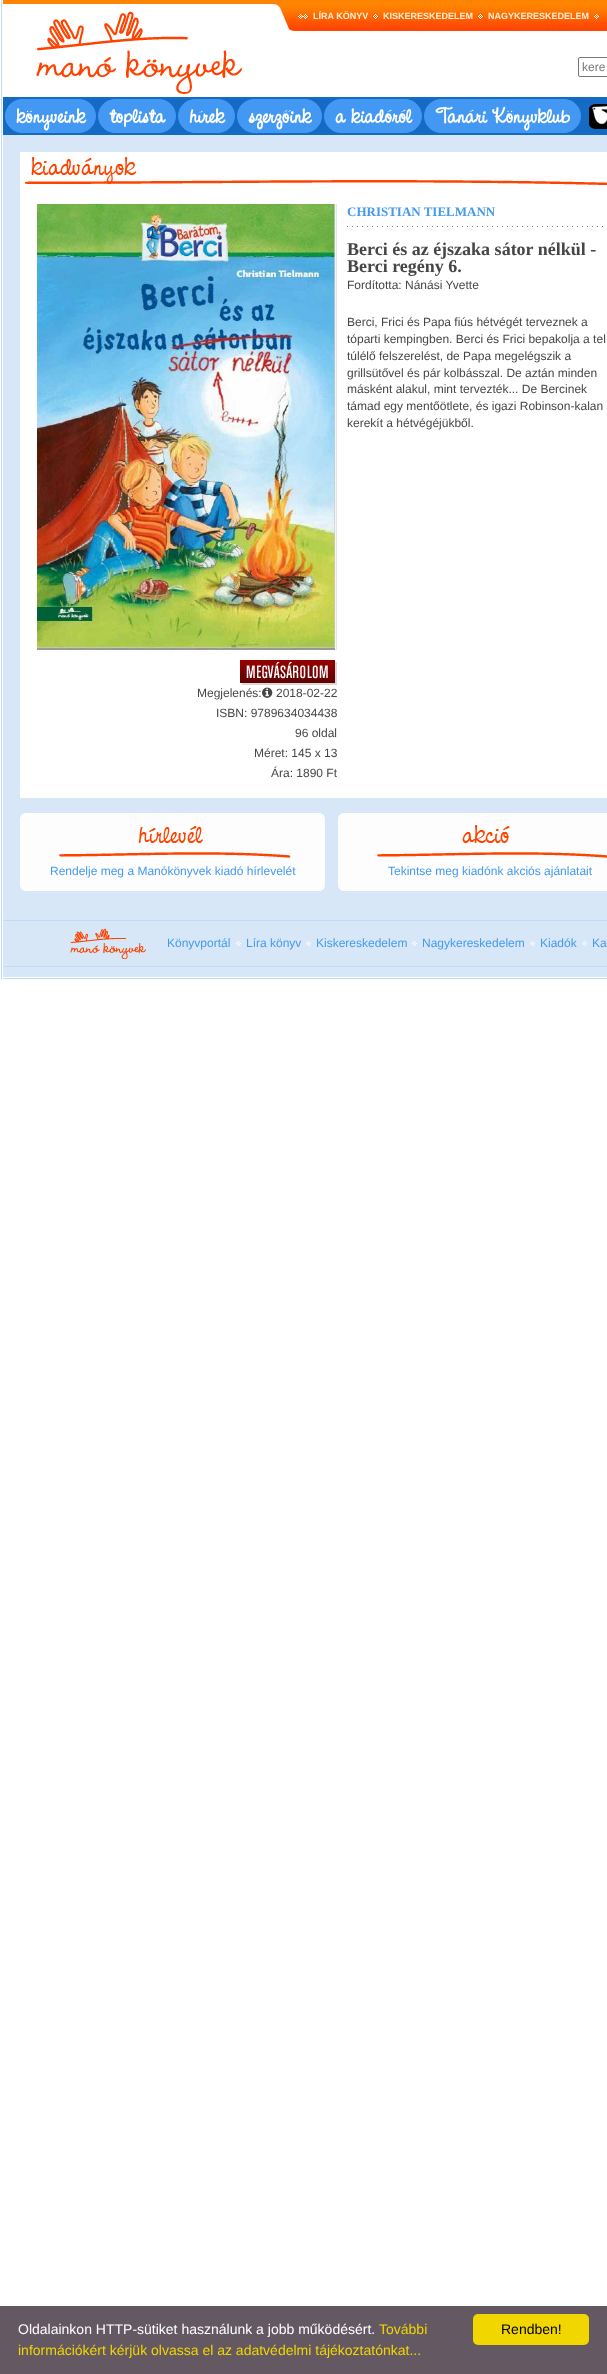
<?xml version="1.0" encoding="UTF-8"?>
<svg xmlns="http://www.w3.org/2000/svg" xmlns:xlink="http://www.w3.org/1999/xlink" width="607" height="2374">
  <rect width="100%" height="100%" fill="#ffffff" />
  <rect x="1" width="1" height="979" fill="#c2dafc" />
  <image x="3" y="0" width="295" height="97" xlink:href="image1.png" />
  <image x="298" y="0" width="309" height="97" xlink:href="image2.png" />
  <image x="298" y="14" width="5" height="5" xlink:href="image3.png" />
  <image x="303" y="14" width="5" height="5" xlink:href="image3.png" />
  <image x="373" y="14" width="5" height="5" xlink:href="image3.png" />
  <image x="478" y="14" width="5" height="5" xlink:href="image3.png" />
  <image x="594" y="14" width="5" height="5" xlink:href="image3.png" />
  <rect x="578.5" y="57.5" width="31" height="19" rx="1.5" fill="none" stroke="#767676" />
  <rect x="3" y="97" width="604" height="38" fill="#156ac4" />
  <rect x="5.5" y="99.5" width="90" height="33" rx="16.5" fill="#4298f2" stroke="#4298f2" />
  <rect x="98.5" y="99.5" width="77" height="33" rx="16.5" fill="#4298f2" stroke="#4298f2" />
  <rect x="178.5" y="99.5" width="56" height="33" rx="16.5" fill="#4298f2" stroke="#4298f2" />
  <rect x="237.5" y="99.5" width="84" height="33" rx="16.5" fill="#4298f2" stroke="#4298f2" />
  <rect x="324.5" y="99.5" width="97" height="33" rx="16.5" fill="#4298f2" stroke="#4298f2" />
  <rect x="424.5" y="99.5" width="156" height="33" rx="16.5" fill="#4298f2" stroke="#4298f2" />
  <image x="589" y="104" width="18" height="25" xlink:href="image4.png" />
  <rect x="3" y="135" width="604" height="842" fill="#d7e7f7" />
  <image x="20" y="152" width="587" height="35" xlink:href="image5.png" />
  <rect x="20" y="187" width="587" height="611" fill="#ffffff" />
  <image x="347" y="226" width="256" height="1" xlink:href="image6.png" />
  <image x="37" y="204" width="300" height="446" xlink:href="image7.png" />
  <image x="240" y="660" width="97" height="25" xlink:href="image8.png" />
  <image x="262" y="687" width="11" height="11" xlink:href="image9.png" />
  <image x="20" y="813" width="305" height="78" xlink:href="image10.png" />
  <image x="338" y="813" width="269" height="78" xlink:href="image11.png" />
  <rect x="3" y="920" width="604" height="1" fill="#c2dafc" />
  <image x="66" y="928" width="80" height="31" xlink:href="image12.png" />
  <image x="236" y="941" width="5" height="5" xlink:href="image13.png" />
  <image x="306" y="941" width="5" height="5" xlink:href="image13.png" />
  <image x="412" y="941" width="5" height="5" xlink:href="image13.png" />
  <image x="530" y="941" width="5" height="5" xlink:href="image13.png" />
  <image x="582" y="941" width="5" height="5" xlink:href="image13.png" />
  <rect x="3" y="966" width="604" height="1" fill="#c2dafc" />
  <rect x="3" y="978" width="604" height="1" fill="#c2dafc" />
  <rect y="2306" width="607" height="68" fill="#645862" />
  <rect x="473" y="2314" width="116" height="31" rx="5" fill="#f1d600" />
  <text x="313" y="19" style="font-family: Liberation Sans; font-size: 9px; font-weight: bold; fill: #fff0d4">LÍRA KÖNYV</text>
  <text x="383" y="19" style="font-family: Liberation Sans; font-size: 9px; font-weight: bold; fill: #fff0d4">KISKERESKEDELEM</text>
  <text x="488" y="19" style="font-family: Liberation Sans; font-size: 9px; font-weight: bold; fill: #fff0d4">NAGYKERESKEDELEM</text>
  <text x="582" y="71" style="font-family: Liberation Sans; font-size: 12px; fill: #777777">kere</text>
  <text x="16" y="123" style="font-family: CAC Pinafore; font-size: 24px; font-weight: bold; fill: #ffffff">könyveink</text>
  <text x="109" y="123" style="font-family: CAC Pinafore; font-size: 24px; font-weight: bold; fill: #ffffff">toplista</text>
  <text x="189" y="123" style="font-family: CAC Pinafore; font-size: 24px; font-weight: bold; fill: #ffffff">hírek</text>
  <text x="248" y="123" style="font-family: CAC Pinafore; font-size: 24px; font-weight: bold; fill: #ffffff">szerzőink</text>
  <text x="335" y="123" style="font-family: CAC Pinafore; font-size: 24px; font-weight: bold; fill: #ffffff">a kiadóról</text>
  <text x="435" y="123" style="font-family: CAC Pinafore; font-size: 24px; font-weight: bold; fill: #ffffff">Tanári Könyvklub</text>
  <text x="347" y="216" style="font-family: Liberation Serif; font-size: 13px; font-weight: bold; fill: #449aed">CHRISTIAN TIELMANN</text>
  <text x="347" y="255" style="font-family: Liberation Serif; font-size: 18px; font-weight: bold; fill: #464646">Berci és az éjszaka sátor nélkül -</text>
  <text x="347" y="272" style="font-family: Liberation Serif; font-size: 18px; font-weight: bold; fill: #464646">Berci regény 6.</text>
  <text x="347" y="289" style="font-family: Liberation Sans; font-size: 12px; fill: #464646">Fordította: Nánási Yvette</text>
  <text x="347" y="326" style="font-family: Liberation Sans; font-size: 12px; fill: #464646">Berci, Frici és Papa fiús hétvégét terveznek a</text>
  <text x="347" y="343" style="font-family: Liberation Sans; font-size: 12px; fill: #464646">tóparti kempingben. Berci és Frici bepakolja a tel</text>
  <text x="347" y="360" style="font-family: Liberation Sans; font-size: 12px; fill: #464646">túlélő felszerelést, de Papa megelégszik a</text>
  <text x="347" y="377" style="font-family: Liberation Sans; font-size: 12px; fill: #464646">grillsütővel és pár kolbásszal. De aztán minden</text>
  <text x="347" y="393" style="font-family: Liberation Sans; font-size: 12px; fill: #464646">másként alakul, mint tervezték... De Bercinek</text>
  <text x="347" y="410" style="font-family: Liberation Sans; font-size: 12px; fill: #464646">támad egy mentőötlete, és igazi Robinson-kalan</text>
  <text x="347" y="427" style="font-family: Liberation Sans; font-size: 12px; fill: #464646">kerekít a hétvégéjükből.</text>
  <text x="197" y="697" style="font-family: Liberation Sans; font-size: 12px; fill: #464646">Megjelenés:</text>
  <text x="276" y="697" style="font-family: Liberation Sans; font-size: 12px; fill: #464646">2018-02-22</text>
  <text x="216" y="717" style="font-family: Liberation Sans; font-size: 12px; fill: #464646">ISBN: 9789634034438</text>
  <text x="295" y="737" style="font-family: Liberation Sans; font-size: 12px; fill: #464646">96 oldal</text>
  <text x="254" y="757" style="font-family: Liberation Sans; font-size: 12px; fill: #464646">Méret: 145 x 13</text>
  <text x="271" y="777" style="font-family: Liberation Sans; font-size: 12px; fill: #464646">Ára: 1890 Ft</text>
  <text x="50" y="875" style="font-family: Liberation Sans; font-size: 12px; fill: #449aed">Rendelje meg a Manókönyvek kiadó hírlevelét</text>
  <text x="388" y="875" style="font-family: Liberation Sans; font-size: 12px; fill: #449aed">Tekintse meg kiadónk akciós ajánlatait</text>
  <text x="167" y="947" style="font-family: Liberation Sans; font-size: 12px; fill: #449aed">Könyvportál</text>
  <text x="246" y="947" style="font-family: Liberation Sans; font-size: 12px; fill: #449aed">Líra könyv</text>
  <text x="316" y="947" style="font-family: Liberation Sans; font-size: 12px; fill: #449aed">Kiskereskedelem</text>
  <text x="422" y="947" style="font-family: Liberation Sans; font-size: 12px; fill: #449aed">Nagykereskedelem</text>
  <text x="540" y="947" style="font-family: Liberation Sans; font-size: 12px; fill: #449aed">Kiadók</text>
  <text x="592" y="947" style="font-family: Liberation Sans; font-size: 12px; fill: #449aed">Ka</text>
  <text x="18" y="2334" style="font-family: Liberation Sans; font-size: 14px; fill: #ffffff">Oldalainkon HTTP-sütiket használunk a jobb működésért.</text>
  <text x="379" y="2334" style="font-family: Liberation Sans; font-size: 14px; fill: #f1d600">További</text>
  <text x="18" y="2355" style="font-family: Liberation Sans; font-size: 14px; fill: #f1d600">információkért kérjük olvassa el az adatvédelmi tájékoztatónkat...</text>
  <text x="501" y="2334" style="font-family: Liberation Sans; font-size: 14px; fill: #000000">Rendben!</text>
</svg>
